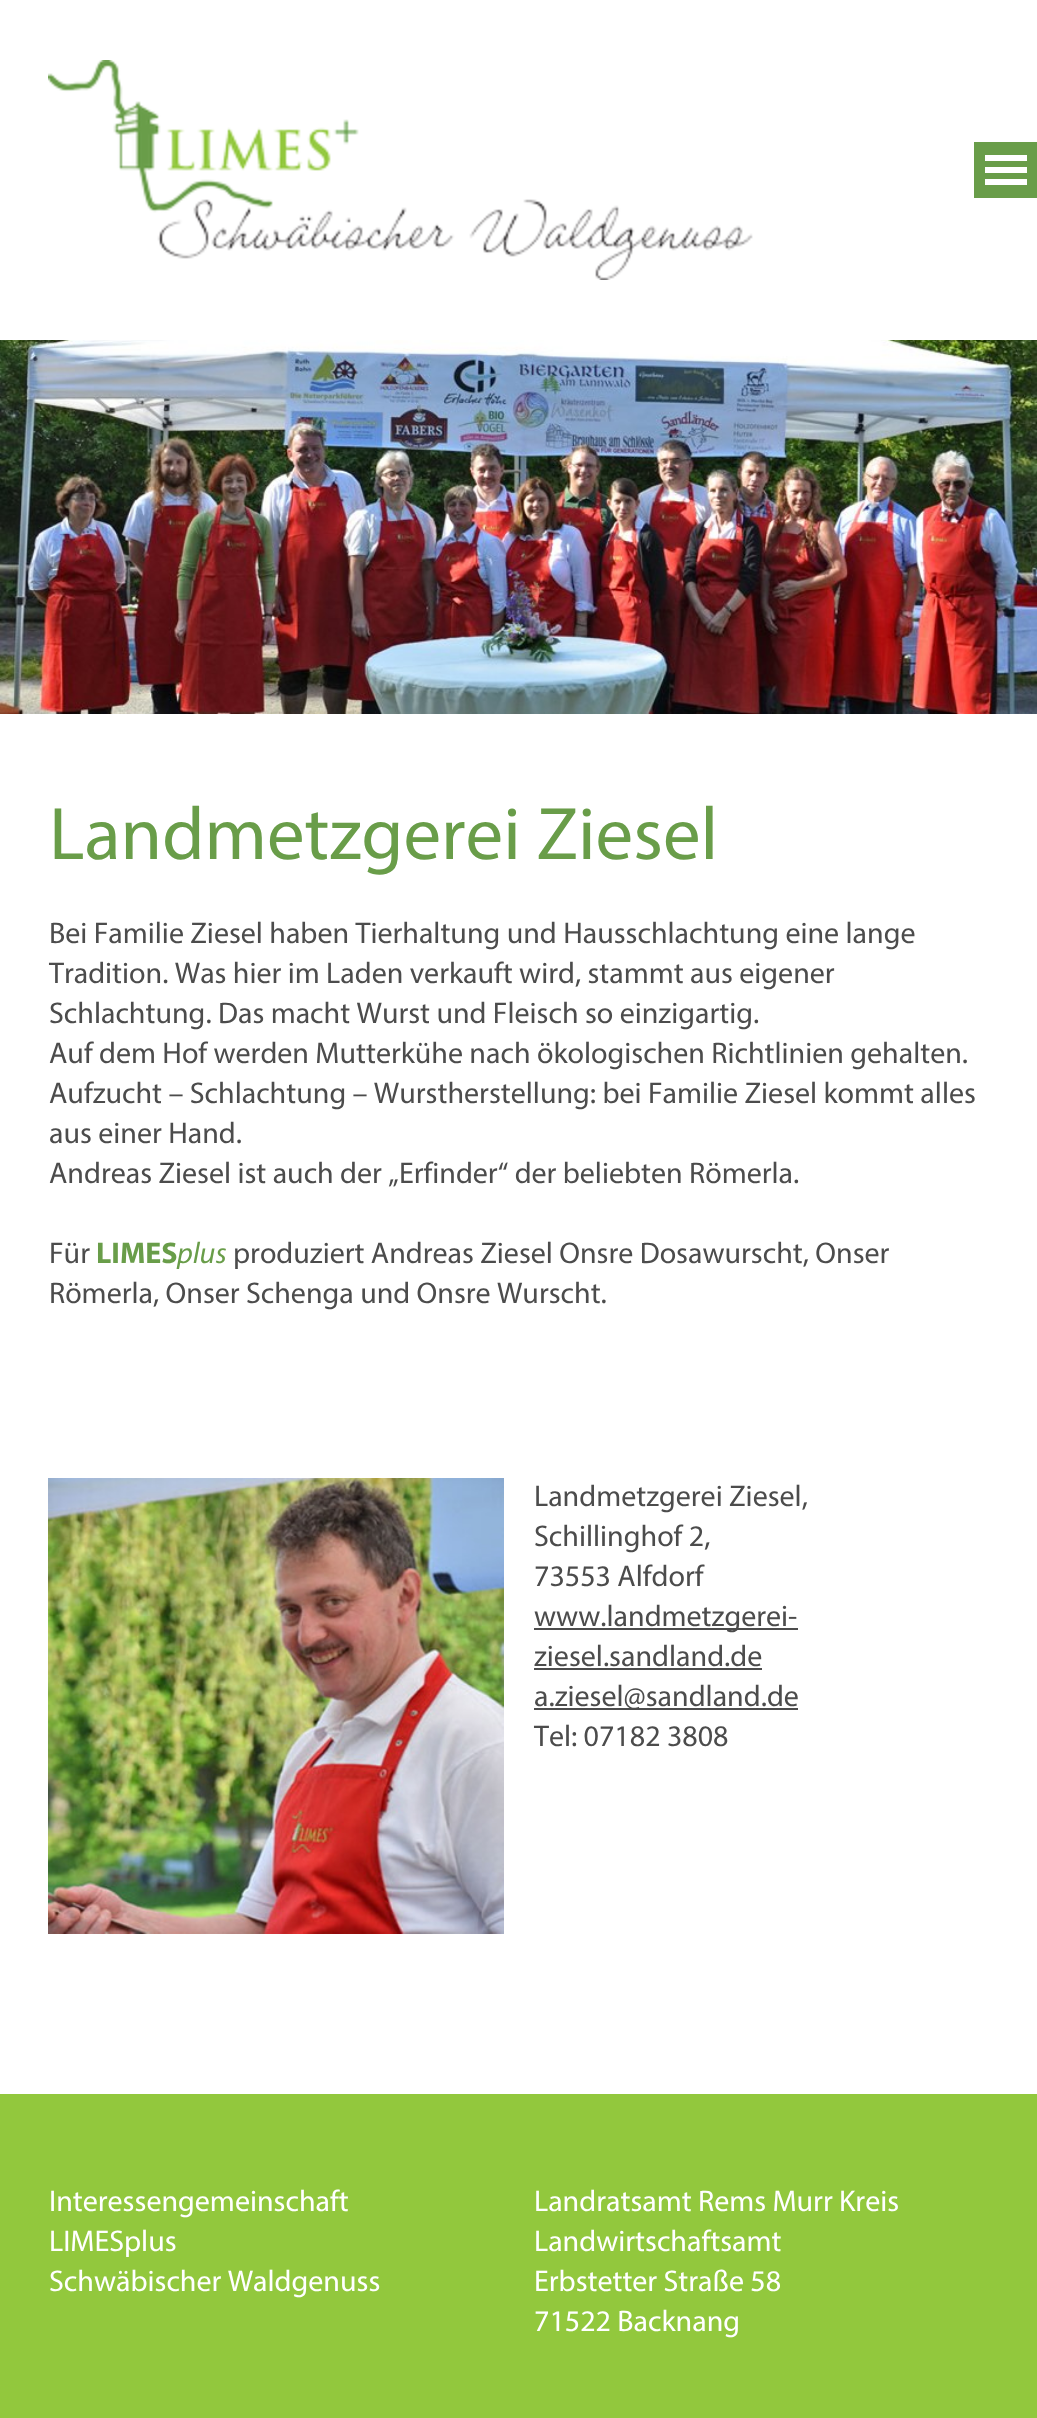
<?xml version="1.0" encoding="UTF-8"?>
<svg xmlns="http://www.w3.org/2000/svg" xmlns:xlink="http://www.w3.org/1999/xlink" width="1037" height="2418">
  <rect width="100%" height="100%" fill="#92c83d" />
  <rect width="1037" height="340" fill="#ffffff" />
  <image x="48" y="60" width="705" height="220" xlink:href="image1.png" />
  <rect x="974" y="142" width="63" height="56" fill="#699d49" />
  <path d="M 985 155 h 42 v 6 h -42 z m 0 12 h 42 v 6 h -42 z m 0 12 h 42 v 6 h -42 z" fill="#ffffff" />
  <image x="0" y="340" width="1037" height="374" xlink:href="image2.png" />
  <rect y="714" width="1037" height="1380" fill="#ffffff" />
  <image x="48" y="1478" width="456" height="456" xlink:href="image3.png" />
  <rect x="534" y="1628" width="264" height="2" fill="#4c4c4c" />
  <rect x="534" y="1668" width="228" height="2" fill="#4c4c4c" />
  <rect x="534" y="1708" width="264" height="2" fill="#4c4c4c" />
  <text x="49" y="859" style="font-family: Myriad; font-size: 75px; fill: #699d49">Landmetzgerei Ziesel</text>
  <text x="49" y="943" style="font-family: Myriad; font-size: 30px; fill: #4c4c4c">Bei Familie Ziesel haben Tierhaltung und Hausschlachtung eine lange</text>
  <text x="49" y="983" style="font-family: Myriad; font-size: 30px; fill: #4c4c4c">Tradition. Was hier im Laden verkauft wird, stammt aus eigener</text>
  <text x="49" y="1023" style="font-family: Myriad; font-size: 30px; fill: #4c4c4c">Schlachtung. Das macht Wurst und Fleisch so einzigartig.</text>
  <text x="49" y="1063" style="font-family: Myriad; font-size: 30px; fill: #4c4c4c">Auf dem Hof werden Mutterkühe nach ökologischen Richtlinien gehalten.</text>
  <text x="49" y="1103" style="font-family: Myriad; font-size: 30px; fill: #4c4c4c">Aufzucht – Schlachtung – Wurstherstellung: bei Familie Ziesel kommt alles</text>
  <text x="49" y="1143" style="font-family: Myriad; font-size: 30px; fill: #4c4c4c">aus einer Hand.</text>
  <text x="49" y="1183" style="font-family: Myriad; font-size: 30px; fill: #4c4c4c">Andreas Ziesel ist auch der „Erfinder“ der beliebten Römerla.</text>
  <text x="49" y="1263" style="font-family: Myriad; font-size: 30px; fill: #4c4c4c">Für</text>
  <text x="96" y="1263" style="font-family: Myriad; font-size: 30px; font-weight: bold; fill: #699d49">LIMES</text>
  <text x="177" y="1263" style="font-family: Myriad; font-size: 30px; font-style: italic; fill: #699d49">plus</text>
  <text x="233" y="1263" style="font-family: Myriad; font-size: 30px; fill: #4c4c4c">produziert Andreas Ziesel Onsre Dosawurscht, Onser</text>
  <text x="49" y="1303" style="font-family: Myriad; font-size: 30px; fill: #4c4c4c">Römerla, Onser Schenga und Onsre Wurscht.</text>
  <text x="534" y="1506" style="font-family: Myriad; font-size: 30px; fill: #4c4c4c">Landmetzgerei Ziesel,</text>
  <text x="534" y="1546" style="font-family: Myriad; font-size: 30px; fill: #4c4c4c">Schillinghof 2,</text>
  <text x="534" y="1586" style="font-family: Myriad; font-size: 30px; fill: #4c4c4c">73553 Alfdorf</text>
  <text x="534" y="1626" style="font-family: Myriad; font-size: 30px; fill: #4c4c4c">www.landmetzgerei-</text>
  <text x="534" y="1666" style="font-family: Myriad; font-size: 30px; fill: #4c4c4c">ziesel.sandland.de</text>
  <text x="534" y="1706" style="font-family: Myriad; font-size: 30px; fill: #4c4c4c">a.ziesel@sandland.de</text>
  <text x="534" y="1746" style="font-family: Myriad; font-size: 30px; fill: #4c4c4c">Tel: 07182 3808</text>
  <text x="49" y="2211" style="font-family: Myriad; font-size: 30px; fill: #ffffff">Interessengemeinschaft</text>
  <text x="49" y="2251" style="font-family: Myriad; font-size: 30px; fill: #ffffff">LIMESplus</text>
  <text x="49" y="2291" style="font-family: Myriad; font-size: 30px; fill: #ffffff">Schwäbischer Waldgenuss</text>
  <text x="534" y="2211" style="font-family: Myriad; font-size: 30px; fill: #ffffff">Landratsamt Rems Murr Kreis</text>
  <text x="534" y="2251" style="font-family: Myriad; font-size: 30px; fill: #ffffff">Landwirtschaftsamt</text>
  <text x="534" y="2291" style="font-family: Myriad; font-size: 30px; fill: #ffffff">Erbstetter Straße 58</text>
  <text x="534" y="2331" style="font-family: Myriad; font-size: 30px; fill: #ffffff">71522 Backnang</text>
</svg>
